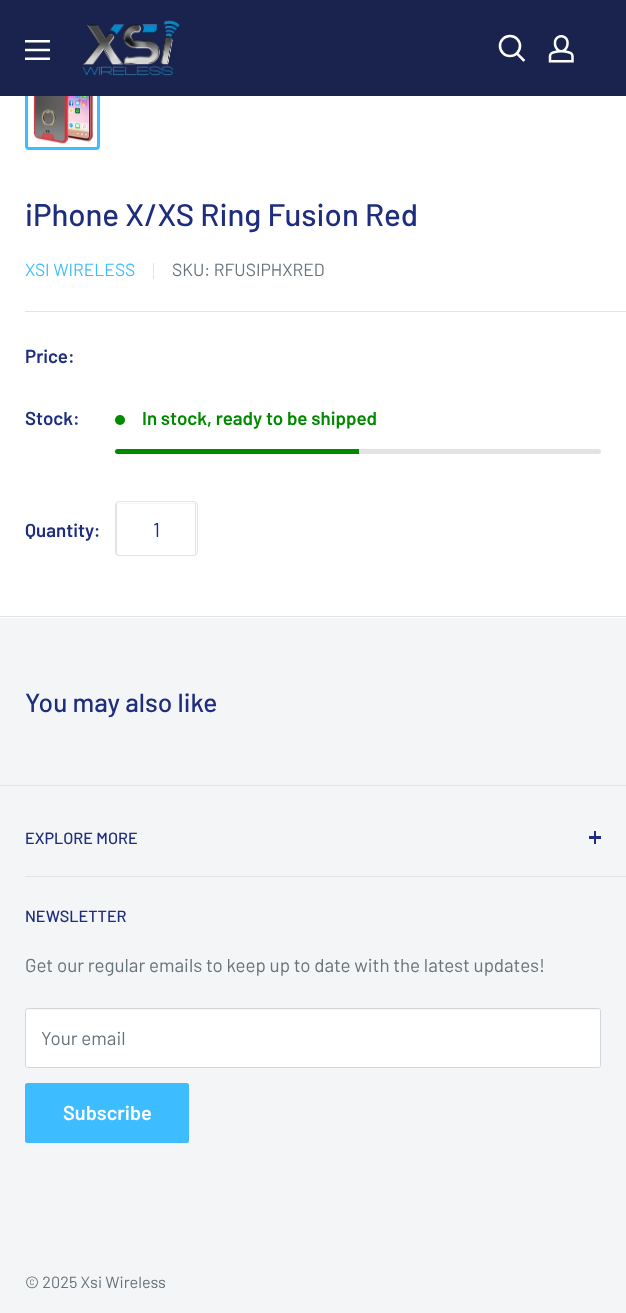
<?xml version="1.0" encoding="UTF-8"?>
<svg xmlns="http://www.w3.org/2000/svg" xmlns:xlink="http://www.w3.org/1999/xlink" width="626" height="1313">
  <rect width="100%" height="100%" fill="#f3f5f6" />
  <rect y="96" width="626" height="522" fill="#ffffff" />
  <rect x="26.5" y="56.5" width="72" height="92" rx="2.5" fill="none" stroke="#3dbdff" stroke-width="3" />
  <rect width="626" height="96" fill="#1a224e" />
  <image x="25" y="40" width="25" height="20" xlink:href="image1.png" />
  <image x="82" y="20" width="98" height="56" xlink:href="image2.png" />
  <path d="M 523.5 60 l -6.5 -6.5" fill="none" stroke="#ffffff" stroke-width="2.6" stroke-linecap="square" />
  <circle cx="510" cy="46" r="10" fill="none" stroke="#ffffff" stroke-width="2.6" />
  <image x="548" y="35" width="26" height="28" xlink:href="image3.png" />
  <image x="33" y="96" width="60" height="48" xlink:href="image4.png" />
  <rect y="616" width="626" height="1" fill="#e1e3e4" />
  <rect x="153" y="263" width="1" height="16" fill="#e1e3e4" />
  <rect x="25" y="311" width="601" height="1" fill="#e1e3e4" />
  <circle cx="120" cy="420" r="5" fill="#008a00" />
  <rect x="115" y="449" width="486" height="5" rx="2.5" fill="#e1e3e4" />
  <path d="M 117.5 449 h 241.5 v 5 h -241.5 c -1.5 0 -2.5 -1 -2.5 -2.5 c 0 -1.5 1 -2.5 2.5 -2.5 z" fill="#008a00" />
  <rect x="115.5" y="501.5" width="82" height="54" rx="3.5" fill="none" stroke="#e1e3e4" />
  <rect x="118" y="503" width="77" height="1" fill="#f3f4f4" />
  <rect x="195" y="503" width="1" height="52" fill="#e1e3e4" />
  <rect x="116" y="503" width="1" height="52" fill="#e1e3e4" />
  <rect y="785" width="626" height="1" fill="#e1e3e4" />
  <rect x="25" y="876" width="601" height="1" fill="#e1e3e4" />
  <rect x="594" y="831" width="2" height="13" fill="#1e2d7d" />
  <rect x="589" y="836" width="12" height="3" fill="#1e2d7d" />
  <rect x="25" y="1008" width="576" height="60" rx="2.5" fill="#ffffff" />
  <path d="M 28 1010 h 571 l 1 1 c 0 -1 0 -2 -1 -2 h -573 v 2 z" fill="#f8f8f8" />
  <rect x="25.5" y="1008.5" width="575" height="59" rx="2" fill="none" stroke="#d4d6d8" />
  <rect x="25" y="1083" width="164" height="60" rx="2.5" fill="#3dbdff" />
  <text x="25" y="226" style="font-family: Barlow; font-size: 31.25px; font-weight: 500; fill: #1e2d7d">iPhone X/XS Ring Fusion Red</text>
  <text x="25" y="276" style="font-family: Barlow; font-size: 17.5px; fill: #3dbdff">XSI WIRELESS</text>
  <text x="172" y="276" style="font-family: Barlow; font-size: 17.5px; fill: #677279">SKU: RFUSIPHXRED</text>
  <text x="25" y="363" style="font-family: Barlow; font-size: 18.75px; font-weight: 600; fill: #1e2d7d">Price:</text>
  <text x="25" y="425" style="font-family: Barlow; font-size: 18.75px; font-weight: 600; fill: #1e2d7d">Stock:</text>
  <text x="142" y="425" style="font-family: Barlow; font-size: 18.75px; font-weight: 600; fill: #008a00">In stock, ready to be shipped</text>
  <text x="25" y="537" style="font-family: Barlow; font-size: 18.75px; font-weight: 600; fill: #1e2d7d">Quantity:</text>
  <text x="153" y="537" style="font-family: Barlow; font-size: 20px; fill: #1e2d7d">1</text>
  <text x="25" y="712" style="font-family: Barlow; font-size: 26.25px; font-weight: 500; fill: #1e2d7d">You may also like</text>
  <text x="25" y="844" style="font-family: Barlow; font-size: 16.25px; font-weight: 500; fill: #1e2d7d">EXPLORE MORE</text>
  <text x="25" y="922" style="font-family: Barlow; font-size: 16.25px; font-weight: 500; fill: #1e2d7d">NEWSLETTER</text>
  <text x="25" y="972" style="font-family: Barlow; font-size: 18.75px; fill: #677279">Get our regular emails to keep up to date with the latest updates!</text>
  <text x="41" y="1045" style="font-family: Barlow; font-size: 18.75px; fill: #677279">Your email</text>
  <text x="63" y="1120" style="font-family: Barlow; font-size: 20px; font-weight: 600; fill: #ffffff">Subscribe</text>
  <text x="25" y="1288" style="font-family: Barlow; font-size: 16.25px; fill: #677279">© 2025 Xsi Wireless</text>
</svg>
